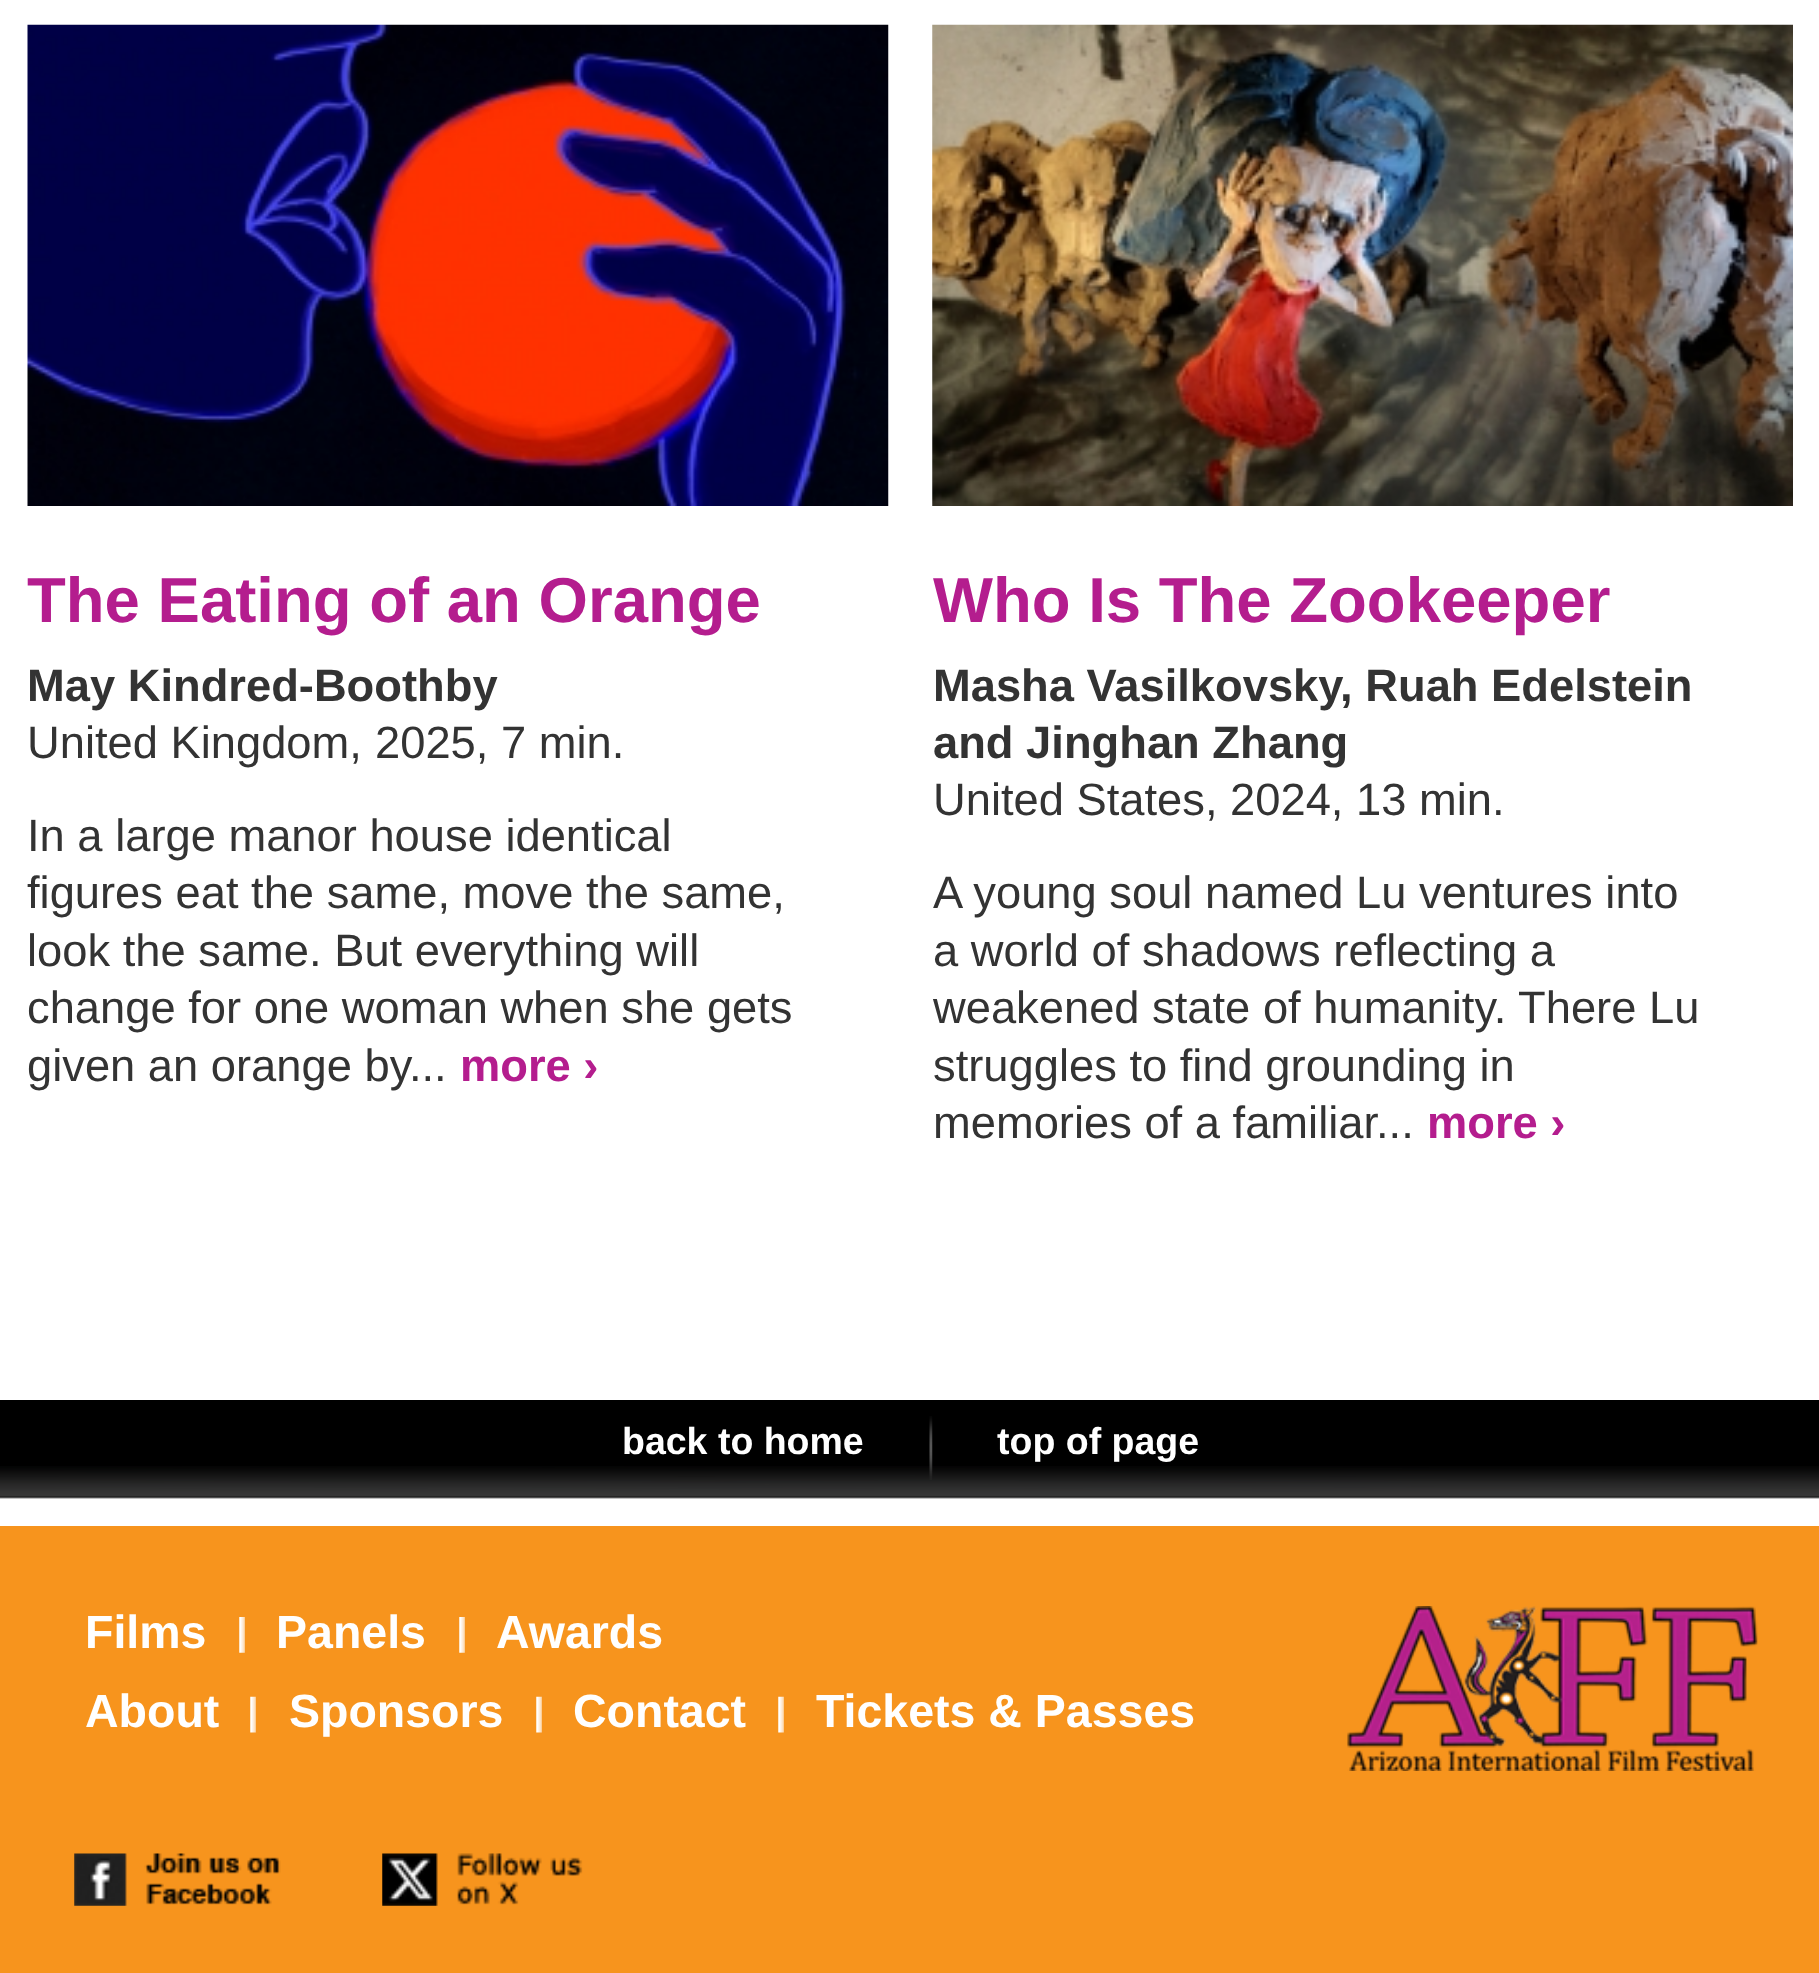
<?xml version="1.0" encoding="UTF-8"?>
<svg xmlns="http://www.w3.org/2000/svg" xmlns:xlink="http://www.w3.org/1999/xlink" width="1819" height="1973">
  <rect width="100%" height="100%" fill="#f7941d" />
  <rect width="1819" height="1526" fill="#ffffff" />
  <image x="27" y="24" width="862" height="482" xlink:href="image1.png" />
  <image x="932" y="24" width="861" height="482" xlink:href="image2.png" />
  <rect y="1400" width="1819" height="99" fill="#000000" />
  <image x="0" y="1466" width="1819" height="33" xlink:href="image3.png" />
  <image x="929" y="1416" width="4" height="64" xlink:href="image4.png" />
  <image x="239" y="1617" width="6" height="36" xlink:href="image5.png" />
  <image x="459" y="1617" width="6" height="36" xlink:href="image5.png" />
  <image x="250" y="1696" width="6" height="37" xlink:href="image6.png" />
  <image x="536" y="1696" width="6" height="37" xlink:href="image6.png" />
  <image x="778" y="1696" width="6" height="37" xlink:href="image6.png" />
  <image x="74" y="1853" width="207" height="53" xlink:href="image7.png" />
  <image x="382" y="1853" width="201" height="53" xlink:href="image8.png" />
  <image x="1347" y="1606" width="411" height="165" xlink:href="image9.png" />
  <text x="27" y="622" style="font-family: Liberation Sans; font-size: 63.5px; font-weight: bold; fill: #b41d8e">The Eating of an Orange</text>
  <text x="27" y="701" style="font-family: Liberation Sans; font-size: 45.3px; font-weight: bold; fill: #333333">May Kindred-Boothby</text>
  <text x="27" y="758" style="font-family: Liberation Sans; font-size: 45.3px; fill: #333333">United Kingdom,</text>
  <text x="375" y="758" style="font-family: Liberation Sans; font-size: 45.3px; fill: #333333">2025, 7 min.</text>
  <text x="27" y="851" style="font-family: Liberation Sans; font-size: 45.3px; fill: #333333">In a large manor house identical</text>
  <text x="27" y="908" style="font-family: Liberation Sans; font-size: 45.3px; fill: #333333">figures eat the same, move the same,</text>
  <text x="27" y="966" style="font-family: Liberation Sans; font-size: 45.3px; fill: #333333">look the same. But everything will</text>
  <text x="27" y="1023" style="font-family: Liberation Sans; font-size: 45.3px; fill: #333333">change for one woman when she gets</text>
  <text x="27" y="1081" style="font-family: Liberation Sans; font-size: 45.3px; fill: #333333">given an orange by...</text>
  <text x="460" y="1081" style="font-family: Liberation Sans; font-size: 45.3px; font-weight: bold; fill: #b41d8e">more ›</text>
  <text x="933" y="622" style="font-family: Liberation Sans; font-size: 63.5px; font-weight: bold; fill: #b41d8e">Who Is The Zookeeper</text>
  <text x="933" y="701" style="font-family: Liberation Sans; font-size: 45.3px; font-weight: bold; fill: #333333">Masha Vasilkovsky, Ruah Edelstein</text>
  <text x="933" y="758" style="font-family: Liberation Sans; font-size: 45.3px; font-weight: bold; fill: #333333">and Jinghan Zhang</text>
  <text x="933" y="815" style="font-family: Liberation Sans; font-size: 45.3px; fill: #333333">United States, 2024, 13 min.</text>
  <text x="933" y="908" style="font-family: Liberation Sans; font-size: 45.3px; fill: #333333">A young soul named Lu ventures into</text>
  <text x="933" y="966" style="font-family: Liberation Sans; font-size: 45.3px; fill: #333333">a world of shadows reflecting a</text>
  <text x="933" y="1023" style="font-family: Liberation Sans; font-size: 45.3px; fill: #333333">weakened state of humanity. There Lu</text>
  <text x="933" y="1081" style="font-family: Liberation Sans; font-size: 45.3px; fill: #333333">struggles to find grounding in</text>
  <text x="933" y="1138" style="font-family: Liberation Sans; font-size: 45.3px; fill: #333333">memories of a familiar...</text>
  <text x="1427" y="1138" style="font-family: Liberation Sans; font-size: 45.3px; font-weight: bold; fill: #b41d8e">more ›</text>
  <text x="622" y="1454" style="font-family: Liberation Sans; font-size: 37.5px; font-weight: bold; fill: #ffffff">back to home</text>
  <text x="997" y="1454" style="font-family: Liberation Sans; font-size: 37.5px; font-weight: bold; fill: #ffffff">top of page</text>
  <text x="85" y="1648" style="font-family: Liberation Sans; font-size: 46.5px; font-weight: bold; fill: #ffffff">Films</text>
  <text x="276" y="1648" style="font-family: Liberation Sans; font-size: 46.5px; font-weight: bold; fill: #ffffff">Panels</text>
  <text x="496" y="1648" style="font-family: Liberation Sans; font-size: 46.5px; font-weight: bold; fill: #ffffff">Awards</text>
  <text x="85" y="1727" style="font-family: Liberation Sans; font-size: 46.5px; font-weight: bold; fill: #ffffff">About</text>
  <text x="289" y="1727" style="font-family: Liberation Sans; font-size: 46.5px; font-weight: bold; fill: #ffffff">Sponsors</text>
  <text x="573" y="1727" style="font-family: Liberation Sans; font-size: 46.5px; font-weight: bold; fill: #ffffff">Contact</text>
  <text x="816" y="1727" style="font-family: Liberation Sans; font-size: 46.5px; font-weight: bold; fill: #ffffff">Tickets &amp; Passes</text>
</svg>
